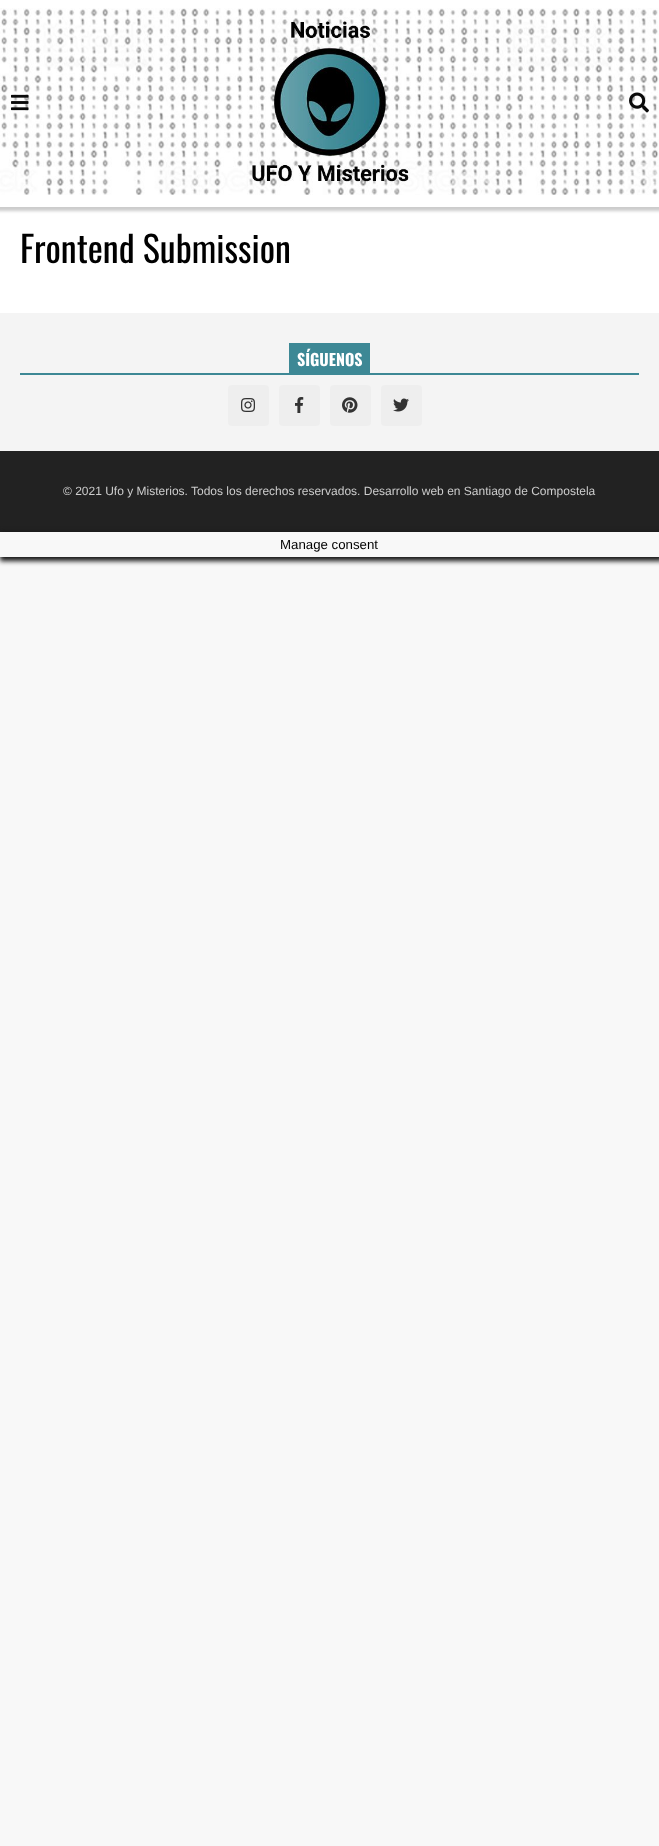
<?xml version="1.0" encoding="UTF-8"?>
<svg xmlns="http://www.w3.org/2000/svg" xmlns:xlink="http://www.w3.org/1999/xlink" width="659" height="1846">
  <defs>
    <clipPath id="clip1"><path d="M 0 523 h 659 v 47 h -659 z m 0 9 h 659 v 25 h -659 z" clip-rule="evenodd" /></clipPath>
  </defs>
  <rect width="100%" height="100%" fill="#f8f8f8" />
  <rect y="207" width="659" height="106" fill="#ffffff" />
  <rect x="-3" y="-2" width="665" height="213" fill="#000000" fill-opacity="0.2" filter="blur(1.5px)" />
  <rect width="659" height="207" fill="#ffffff" />
  <image x="0" y="8" width="659" height="187" xlink:href="image1.png" />
  <image x="11" y="94" width="18" height="17" xlink:href="image2.png" />
  <image x="629" y="92" width="20" height="21" xlink:href="image3.png" />
  <rect y="313" width="659" height="138" fill="#f4f4f4" />
  <rect x="20" y="373" width="619" height="2" fill="#3d8895" />
  <rect x="289" y="343" width="81" height="30" fill="#3d8895" />
  <rect x="228" y="385" width="41" height="41" rx="4" fill="#eeeeee" />
  <image x="241" y="398" width="14" height="14" xlink:href="image4.png" />
  <rect x="279" y="385" width="41" height="41" rx="4" fill="#eeeeee" />
  <image x="295" y="397" width="9" height="16" xlink:href="image5.png" />
  <rect x="330" y="385" width="41" height="41" rx="4" fill="#eeeeee" />
  <image x="342" y="397" width="16" height="16" xlink:href="image6.png" />
  <rect x="381" y="385" width="41" height="41" rx="4" fill="#eeeeee" />
  <image x="393" y="398" width="16" height="14" xlink:href="image7.png" />
  <rect y="451" width="659" height="81" fill="#222222" />
  <g clip-path="url(#clip1)">
    <rect y="532" width="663" height="29" fill="#161616" filter="blur(2.5px)" />
  </g>
  <text x="20" y="263" style="font-family: Oswald; font-size: 36px; fill: #000000">Frontend Submission</text>
  <text x="297" y="366" style="font-family: Oswald; font-size: 16px; font-weight: bold; fill: #ffffff">SÍGUENOS</text>
  <text x="63" y="495" style="font-family: Liberation Sans; font-size: 12px; fill: #cccccc">© 2021 Ufo y Misterios. Todos los derechos reservados. Desarrollo web en Santiago de Compostela</text>
  <text x="280" y="549" style="font-family: Liberation Sans; font-size: 13.25px; fill: #000000">Manage consent</text>
</svg>
